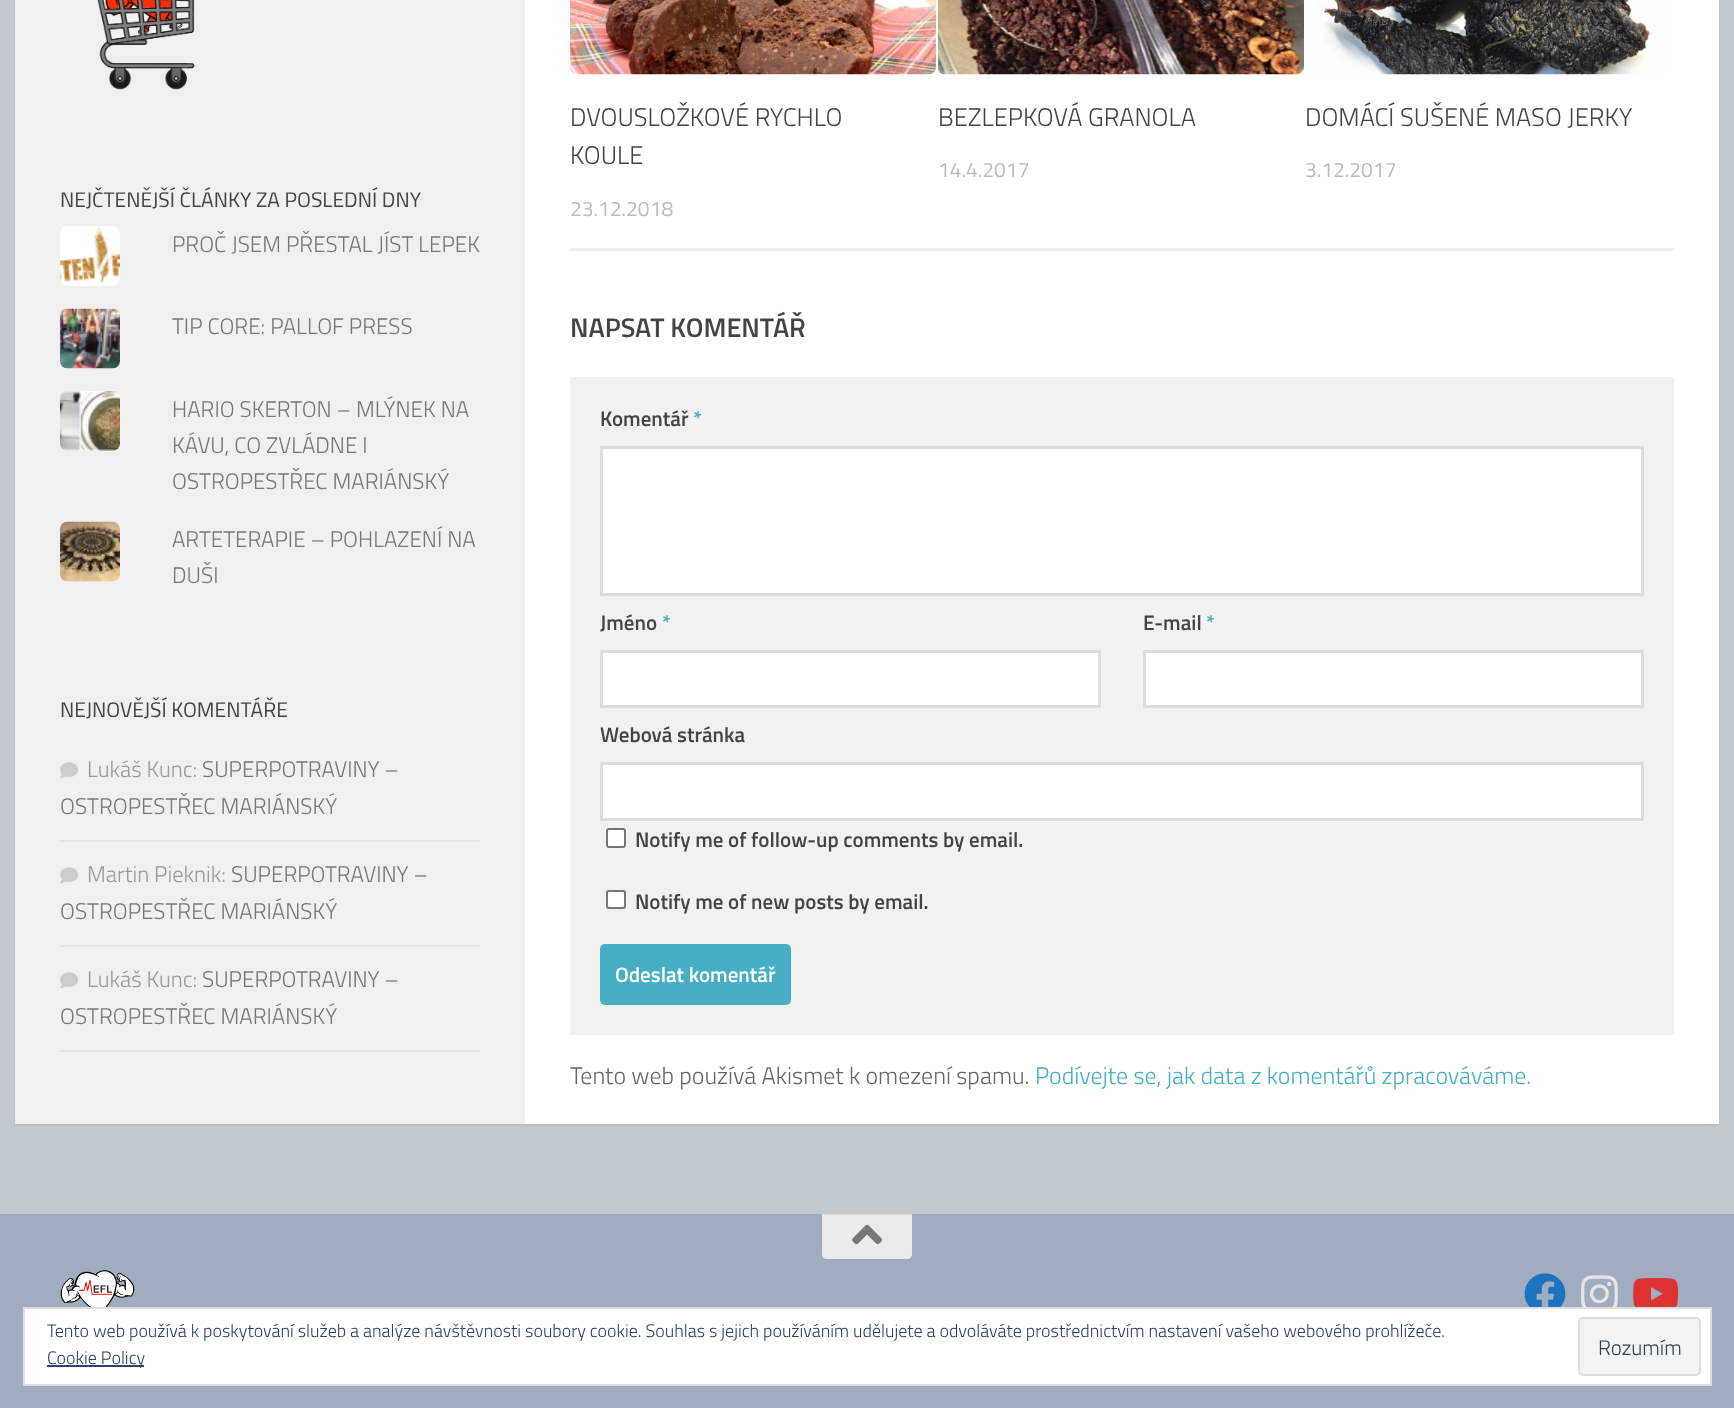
<?xml version="1.0" encoding="UTF-8"?>
<svg xmlns="http://www.w3.org/2000/svg" xmlns:xlink="http://www.w3.org/1999/xlink" width="1734" height="1408">
  <rect width="100%" height="100%" fill="#c2c9ce" />
  <rect x="15" y="-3" width="1704" height="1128" fill="#000000" fill-opacity="0.1" filter="blur(1px)" />
  <rect x="525" width="1194" height="1124" fill="#ffffff" />
  <rect x="15" width="510" height="1124" fill="#f0f0f0" />
  <image x="97" y="0" width="98" height="90" xlink:href="image1.png" />
  <image x="60" y="226" width="60" height="60" xlink:href="image2.png" />
  <image x="60" y="308" width="60" height="61" xlink:href="image3.png" />
  <image x="60" y="391" width="60" height="60" xlink:href="image4.png" />
  <image x="60" y="521" width="60" height="61" xlink:href="image5.png" />
  <rect x="60" y="840" width="420" height="2" fill="#e4e4e4" />
  <image x="60" y="762" width="18" height="16" xlink:href="image6.png" />
  <rect x="60" y="945" width="420" height="2" fill="#e4e4e4" />
  <image x="60" y="867" width="18" height="16" xlink:href="image6.png" />
  <rect x="60" y="1050" width="420" height="2" fill="#e4e4e4" />
  <image x="60" y="972" width="18" height="16" xlink:href="image6.png" />
  <rect x="570" y="248" width="1104" height="3" fill="#eeeeee" />
  <image x="570" y="0" width="366" height="75" xlink:href="image7.png" />
  <image x="938" y="0" width="366" height="75" xlink:href="image8.png" />
  <image x="1316" y="0" width="352" height="75" xlink:href="image9.png" />
  <rect x="570" y="377" width="1104" height="658" rx="3" fill="#f1f1f1" />
  <rect x="601.5" y="447.5" width="1041" height="147" fill="#ffffff" stroke="#dddddd" stroke-width="3" />
  <rect x="601.5" y="651.5" width="498" height="55" fill="#ffffff" stroke="#dddddd" stroke-width="3" />
  <rect x="1144.5" y="651.5" width="498" height="55" fill="#ffffff" stroke="#dddddd" stroke-width="3" />
  <rect x="601.5" y="763.5" width="1041" height="56" fill="#ffffff" stroke="#dddddd" stroke-width="3" />
  <rect x="607" y="829" width="18" height="18" rx="2" fill="#ffffff" stroke="#767676" stroke-width="2" />
  <rect x="607" y="891" width="18" height="17" rx="2" fill="#ffffff" stroke="#767676" stroke-width="2" />
  <rect x="600" y="944" width="191" height="61" rx="5" fill="#46afc4" />
  <rect y="1214" width="1734" height="194" fill="#a0acbf" />
  <path d="M 822 1214 h 90 v 40 c 0 3 -2 5 -5 5 h -80 c -3 0 -5 -2 -5 -5 z" fill="#eaeaea" />
  <rect x="822" y="1214" width="90" height="1" fill="#dedede" />
  <image x="852" y="1224" width="31" height="21" xlink:href="image10.png" />
  <image x="60" y="1270" width="75" height="37" xlink:href="image11.png" />
  <image x="1524" y="1273" width="42" height="34" xlink:href="image12.png" />
  <image x="1581" y="1275" width="37" height="32" xlink:href="image13.png" />
  <image x="1633" y="1278" width="45" height="29" xlink:href="image14.png" />
  <rect x="24" y="1308" width="1687" height="77" fill="#ffffff" stroke="#dedede" stroke-width="2" />
  <rect x="1579" y="1318" width="121" height="57" rx="4" fill="#f3f3f3" stroke="#dedede" stroke-width="2" />
  <rect x="47" y="1365" width="97" height="2" fill="#2e4467" />
  <text x="60" y="207" style="font-family: Titillium Web; font-size: 21.1px; fill: #444444">NEJČTENĚJŠÍ ČLÁNKY ZA POSLEDNÍ DNY</text>
  <text x="172" y="252" style="font-family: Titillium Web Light; font-size: 22.5px; font-weight: 300; fill: #777777">PROČ JSEM PŘESTAL JÍST LEPEK</text>
  <text x="172" y="334" style="font-family: Titillium Web Light; font-size: 22.5px; font-weight: 300; fill: #777777">TIP CORE: PALLOF PRESS</text>
  <text x="172" y="417" style="font-family: Titillium Web Light; font-size: 22.5px; font-weight: 300; fill: #777777">HARIO SKERTON – MLÝNEK NA</text>
  <text x="172" y="453" style="font-family: Titillium Web Light; font-size: 22.5px; font-weight: 300; fill: #777777">KÁVU, CO ZVLÁDNE I</text>
  <text x="172" y="489" style="font-family: Titillium Web Light; font-size: 22.5px; font-weight: 300; fill: #777777">OSTROPESTŘEC MARIÁNSKÝ</text>
  <text x="172" y="547" style="font-family: Titillium Web Light; font-size: 22.5px; font-weight: 300; fill: #777777">ARTETERAPIE – POHLAZENÍ NA</text>
  <text x="172" y="583" style="font-family: Titillium Web Light; font-size: 22.5px; font-weight: 300; fill: #777777">DUŠI</text>
  <text x="60" y="717" style="font-family: Titillium Web; font-size: 21.1px; fill: #444444">NEJNOVĚJŠÍ KOMENTÁŘE</text>
  <text x="87" y="777" style="font-family: Titillium Web Light; font-size: 22.5px; font-weight: 300; fill: #999999">Lukáš Kunc:</text>
  <text x="202" y="777" style="font-family: Titillium Web Light; font-size: 22.5px; font-weight: 300; fill: #777777">SUPERPOTRAVINY –</text>
  <text x="60" y="814" style="font-family: Titillium Web Light; font-size: 22.5px; font-weight: 300; fill: #777777">OSTROPESTŘEC MARIÁNSKÝ</text>
  <text x="87" y="882" style="font-family: Titillium Web Light; font-size: 22.5px; font-weight: 300; fill: #999999">Martin Pieknik:</text>
  <text x="231" y="882" style="font-family: Titillium Web Light; font-size: 22.5px; font-weight: 300; fill: #777777">SUPERPOTRAVINY –</text>
  <text x="60" y="919" style="font-family: Titillium Web Light; font-size: 22.5px; font-weight: 300; fill: #777777">OSTROPESTŘEC MARIÁNSKÝ</text>
  <text x="87" y="987" style="font-family: Titillium Web Light; font-size: 22.5px; font-weight: 300; fill: #999999">Lukáš Kunc:</text>
  <text x="202" y="987" style="font-family: Titillium Web Light; font-size: 22.5px; font-weight: 300; fill: #777777">SUPERPOTRAVINY –</text>
  <text x="60" y="1024" style="font-family: Titillium Web Light; font-size: 22.5px; font-weight: 300; fill: #777777">OSTROPESTŘEC MARIÁNSKÝ</text>
  <text x="570" y="126" style="font-family: Titillium Web Light; font-size: 25.5px; font-weight: 300; fill: #444444">DVOUSLOŽKOVÉ RYCHLO</text>
  <text x="570" y="164" style="font-family: Titillium Web Light; font-size: 25.5px; font-weight: 300; fill: #444444">KOULE</text>
  <text x="570" y="216" style="font-family: Titillium Web; font-size: 21px; fill: #bbbbbb">23.12.2018</text>
  <text x="938" y="126" style="font-family: Titillium Web Light; font-size: 25.5px; font-weight: 300; fill: #444444">BEZLEPKOVÁ GRANOLA</text>
  <text x="938" y="177" style="font-family: Titillium Web; font-size: 21px; fill: #bbbbbb">14.4.2017</text>
  <text x="1305" y="126" style="font-family: Titillium Web Light; font-size: 25.5px; font-weight: 300; fill: #444444">DOMÁCÍ SUŠENÉ MASO JERKY</text>
  <text x="1305" y="177" style="font-family: Titillium Web; font-size: 21px; fill: #bbbbbb">3.12.2017</text>
  <text x="570" y="337" style="font-family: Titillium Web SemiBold; font-size: 27px; font-weight: 600; fill: #444444">NAPSAT KOMENTÁŘ</text>
  <text x="600" y="426" style="font-family: Titillium Web SemiBold; font-size: 21px; font-weight: 600; fill: #444444">Komentář</text>
  <text x="693" y="426" style="font-family: Titillium Web SemiBold; font-size: 21px; font-weight: 600; fill: #46afc4">*</text>
  <text x="600" y="630" style="font-family: Titillium Web SemiBold; font-size: 21px; font-weight: 600; fill: #444444">Jméno</text>
  <text x="662" y="630" style="font-family: Titillium Web SemiBold; font-size: 21px; font-weight: 600; fill: #46afc4">*</text>
  <text x="1143" y="630" style="font-family: Titillium Web SemiBold; font-size: 21px; font-weight: 600; fill: #444444">E-mail</text>
  <text x="1206" y="630" style="font-family: Titillium Web SemiBold; font-size: 21px; font-weight: 600; fill: #46afc4">*</text>
  <text x="600" y="742" style="font-family: Titillium Web SemiBold; font-size: 21px; font-weight: 600; fill: #444444">Webová stránka</text>
  <text x="635" y="847" style="font-family: Titillium Web SemiBold; font-size: 21px; font-weight: 600; fill: #444444">Notify me of follow-up comments by email.</text>
  <text x="635" y="909" style="font-family: Titillium Web SemiBold; font-size: 21px; font-weight: 600; fill: #444444">Notify me of new posts by email.</text>
  <text x="615" y="982" style="font-family: Titillium Web SemiBold; font-size: 21px; font-weight: 600; fill: #ffffff">Odeslat komentář</text>
  <text x="570" y="1084" style="font-family: Titillium Web Light; font-size: 24px; font-weight: 300; fill: #666666">Tento web používá Akismet k omezení spamu.</text>
  <text x="1035" y="1084" style="font-family: Titillium Web Light; font-size: 24px; font-weight: 300; fill: #46afc4">Podívejte se, jak data z komentářů zpracováváme.</text>
  <text x="47" y="1337" style="font-family: Titillium Web Light; font-size: 18px; font-weight: 300; fill: #2e4467">Tento web používá k poskytování služeb a analýze návštěvnosti soubory cookie. Souhlas s jejich používáním udělujete a odvoláváte prostřednictvím nastavení vašeho webového prohlížeče.</text>
  <text x="1598" y="1355" style="font-family: Titillium Web Light; font-size: 21px; font-weight: 300; fill: #2e4453">Rozumím</text>
  <text x="47" y="1364" style="font-family: Titillium Web Light; font-size: 18px; font-weight: 300; fill: #2e4467">Cookie Policy</text>
</svg>
